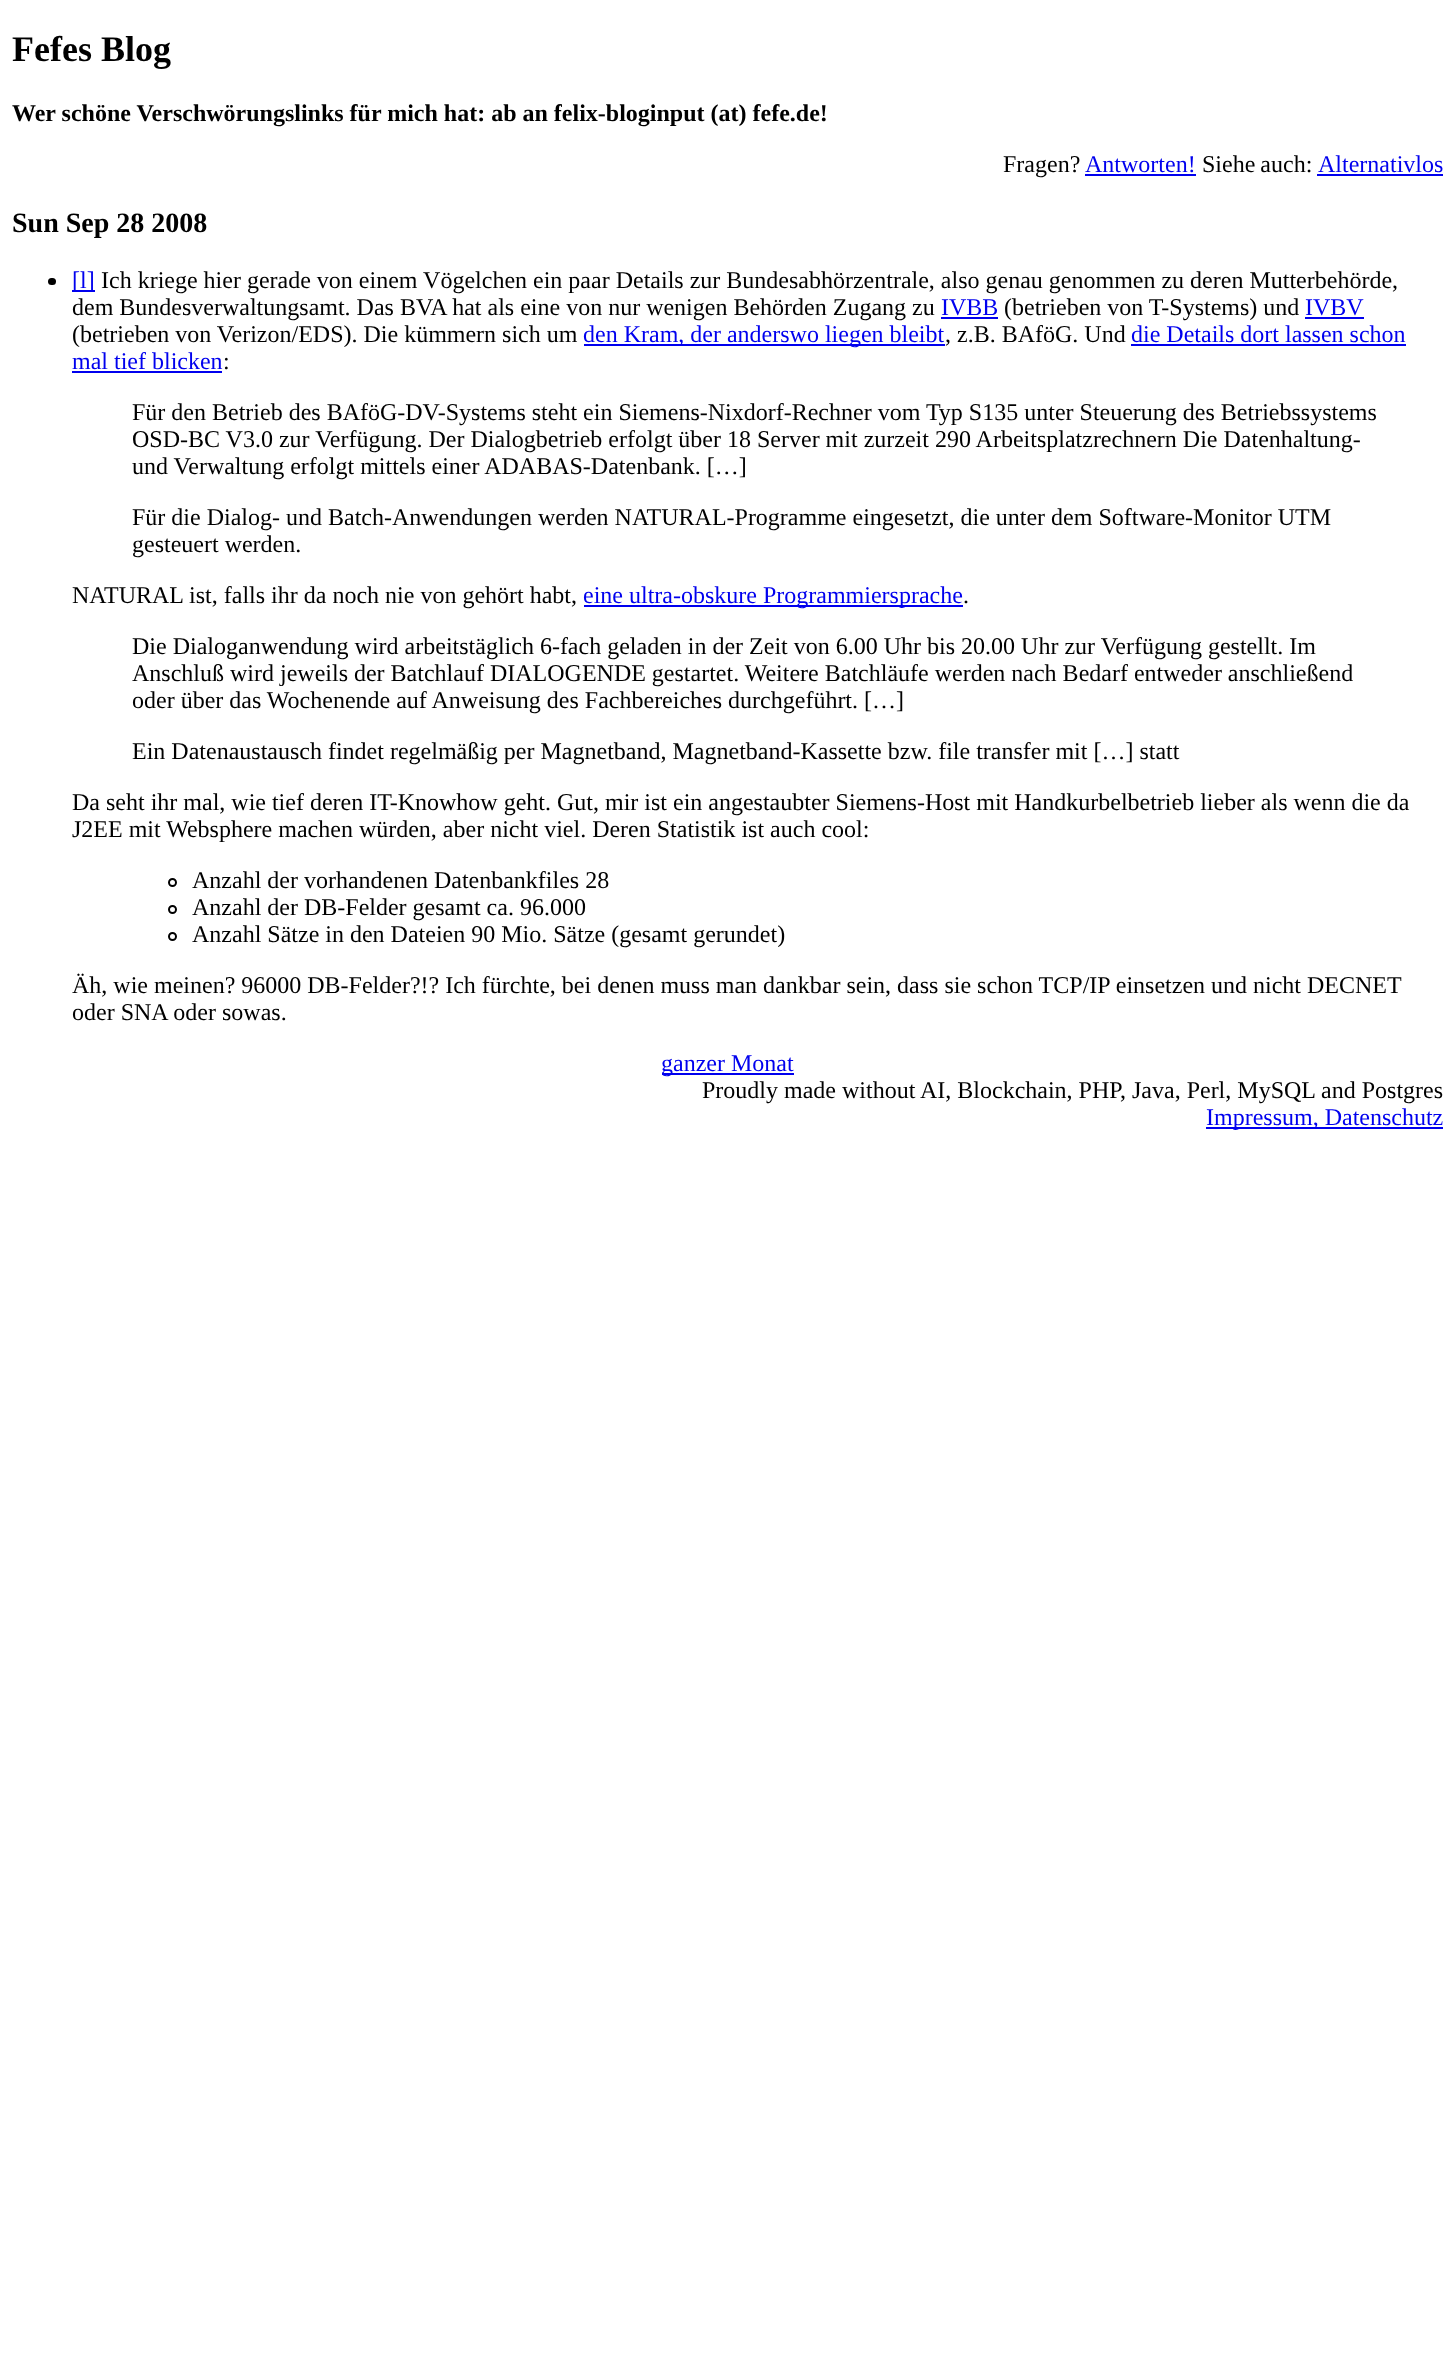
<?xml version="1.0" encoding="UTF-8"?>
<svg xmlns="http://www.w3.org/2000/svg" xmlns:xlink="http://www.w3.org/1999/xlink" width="1455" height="2370">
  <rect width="100%" height="100%" fill="#ffffff" />
  <rect x="1085" y="174" width="111" height="2" fill="#0000ee" />
  <rect x="1317" y="174" width="126" height="2" fill="#0000ee" />
  <rect x="48" y="278" width="8" height="7" rx="3.5" fill="#000000" />
  <rect x="72" y="290" width="23" height="2" fill="#0000ee" />
  <rect x="941" y="317" width="57" height="2" fill="#0000ee" />
  <rect x="1305" y="317" width="59" height="2" fill="#0000ee" />
  <rect x="584" y="344" width="361" height="2" fill="#0000ee" />
  <rect x="1131" y="344" width="275" height="2" fill="#0000ee" />
  <rect x="72" y="371" width="150" height="2" fill="#0000ee" />
  <rect x="584" y="605" width="379" height="2" fill="#0000ee" />
  <circle cx="172.5" cy="882.5" r="3.5" fill="none" stroke="#000000" stroke-width="2" />
  <circle cx="172.5" cy="909.5" r="3.5" fill="none" stroke="#000000" stroke-width="2" />
  <circle cx="172.5" cy="936.5" r="3.5" fill="none" stroke="#000000" stroke-width="2" />
  <rect x="662" y="1073" width="132" height="2" fill="#0000ee" />
  <rect x="1206" y="1127" width="237" height="2" fill="#0000ee" />
  <text x="12" y="61" style="font-family: Liberation Serif; font-size: 36px; font-weight: bold; fill: #000000">Fefes Blog</text>
  <text x="12" y="121" style="font-family: Liberation Serif; font-size: 24px; font-weight: bold; fill: #000000">Wer schöne Verschwörungslinks für mich hat: ab an felix-bloginput (at) fefe.de!</text>
  <text x="1003" y="172" style="font-family: Liberation Serif; font-size: 24px; fill: #000000">Fragen?</text>
  <text x="1085" y="172" style="font-family: Liberation Serif; font-size: 24px; fill: #0000ee">Antworten!</text>
  <text x="1202" y="172" word-spacing="-1" style="font-family: Liberation Serif; font-size: 24px; fill: #000000">Siehe auch:</text>
  <text x="1318" y="172" style="font-family: Liberation Serif; font-size: 24px; fill: #0000ee">Alternativlos</text>
  <text x="12" y="232" style="font-family: Liberation Serif; font-size: 28px; font-weight: bold; fill: #000000">Sun Sep 28 2008</text>
  <text x="72" y="288" style="font-family: Liberation Serif; font-size: 24px; fill: #0000ee">[l]</text>
  <text x="101" y="288" style="font-family: Liberation Serif; font-size: 24px; fill: #000000">Ich kriege hier gerade von einem Vögelchen ein paar Details zur Bundesabhörzentrale, also genau genommen zu deren Mutterbehörde,</text>
  <text x="72" y="315" style="font-family: Liberation Serif; font-size: 24px; fill: #000000">dem Bundesverwaltungsamt. Das BVA hat als eine von nur wenigen Behörden Zugang zu</text>
  <text x="941" y="315" style="font-family: Liberation Serif; font-size: 24px; fill: #0000ee">IVBB</text>
  <text x="1004" y="315" style="font-family: Liberation Serif; font-size: 24px; fill: #000000">(betrieben von T-Systems) und</text>
  <text x="1305" y="315" style="font-family: Liberation Serif; font-size: 24px; fill: #0000ee">IVBV</text>
  <text x="72" y="342" style="font-family: Liberation Serif; font-size: 24px; fill: #000000">(betrieben von Verizon/EDS). Die kümmern sich um</text>
  <text x="583" y="342" style="font-family: Liberation Serif; font-size: 24px; fill: #0000ee">den Kram, der anderswo liegen bleibt</text>
  <text x="945" y="342" style="font-family: Liberation Serif; font-size: 24px; fill: #000000">, z.B. BAföG. Und</text>
  <text x="1131" y="342" style="font-family: Liberation Serif; font-size: 24px; fill: #0000ee">die Details dort lassen schon</text>
  <text x="72" y="369" style="font-family: Liberation Serif; font-size: 24px; fill: #0000ee">mal tief blicken</text>
  <text x="223" y="369" style="font-family: Liberation Serif; font-size: 24px; fill: #000000">:</text>
  <text x="132" y="420" style="font-family: Liberation Serif; font-size: 24px; fill: #000000">Für den Betrieb des BAföG-DV-Systems steht ein Siemens-Nixdorf-Rechner vom Typ S135 unter Steuerung des Betriebssystems</text>
  <text x="132" y="447" style="font-family: Liberation Serif; font-size: 24px; fill: #000000">OSD-BC V3.0 zur Verfügung. Der Dialogbetrieb erfolgt über 18 Server mit zurzeit 290 Arbeitsplatzrechnern Die Datenhaltung-</text>
  <text x="132" y="474" style="font-family: Liberation Serif; font-size: 24px; fill: #000000">und Verwaltung erfolgt mittels einer ADABAS-Datenbank. […]</text>
  <text x="132" y="525" style="font-family: Liberation Serif; font-size: 24px; fill: #000000">Für die Dialog- und Batch-Anwendungen werden NATURAL-Programme eingesetzt, die unter dem Software-Monitor UTM</text>
  <text x="132" y="552" style="font-family: Liberation Serif; font-size: 24px; fill: #000000">gesteuert werden.</text>
  <text x="72" y="603" style="font-family: Liberation Serif; font-size: 24px; fill: #000000">NATURAL ist, falls ihr da noch nie von gehört habt,</text>
  <text x="583" y="603" style="font-family: Liberation Serif; font-size: 24px; fill: #0000ee">eine ultra-obskure Programmiersprache</text>
  <text x="963" y="603" style="font-family: Liberation Serif; font-size: 24px; fill: #000000">.</text>
  <text x="132" y="654" style="font-family: Liberation Serif; font-size: 24px; fill: #000000">Die Dialoganwendung wird arbeitstäglich 6-fach geladen in der Zeit von 6.00 Uhr bis 20.00 Uhr zur Verfügung gestellt. Im</text>
  <text x="132" y="681" style="font-family: Liberation Serif; font-size: 24px; fill: #000000">Anschluß wird jeweils der Batchlauf DIALOGENDE gestartet. Weitere Batchläufe werden nach Bedarf entweder anschließend</text>
  <text x="132" y="708" style="font-family: Liberation Serif; font-size: 24px; fill: #000000">oder über das Wochenende auf Anweisung des Fachbereiches durchgeführt. […]</text>
  <text x="132" y="759" style="font-family: Liberation Serif; font-size: 24px; fill: #000000">Ein Datenaustausch findet regelmäßig per Magnetband, Magnetband-Kassette bzw. file transfer mit […] statt</text>
  <text x="72" y="810" style="font-family: Liberation Serif; font-size: 24px; fill: #000000">Da seht ihr mal, wie tief deren IT-Knowhow geht. Gut, mir ist ein angestaubter Siemens-Host mit Handkurbelbetrieb lieber als wenn die da</text>
  <text x="72" y="837" style="font-family: Liberation Serif; font-size: 24px; fill: #000000">J2EE mit Websphere machen würden, aber nicht viel. Deren Statistik ist auch cool:</text>
  <text x="192" y="888" style="font-family: Liberation Serif; font-size: 24px; fill: #000000">Anzahl der vorhandenen Datenbankfiles 28</text>
  <text x="192" y="915" style="font-family: Liberation Serif; font-size: 24px; fill: #000000">Anzahl der DB-Felder gesamt ca. 96.000</text>
  <text x="192" y="942" style="font-family: Liberation Serif; font-size: 24px; fill: #000000">Anzahl Sätze in den Dateien 90 Mio. Sätze (gesamt gerundet)</text>
  <text x="72" y="993" style="font-family: Liberation Serif; font-size: 24px; fill: #000000">Äh, wie meinen? 96000 DB-Felder?!? Ich fürchte, bei denen muss man dankbar sein, dass sie schon TCP/IP einsetzen und nicht DECNET</text>
  <text x="72" y="1020" style="font-family: Liberation Serif; font-size: 24px; fill: #000000">oder SNA oder sowas.</text>
  <text x="661" y="1071" style="font-family: Liberation Serif; font-size: 24px; fill: #0000ee">ganzer Monat</text>
  <text x="702" y="1098" style="font-family: Liberation Serif; font-size: 24px; fill: #000000">Proudly made without AI, Blockchain, PHP, Java, Perl, MySQL and Postgres</text>
  <text x="1206" y="1125" style="font-family: Liberation Serif; font-size: 24px; fill: #0000ee">Impressum, Datenschutz</text>
</svg>
